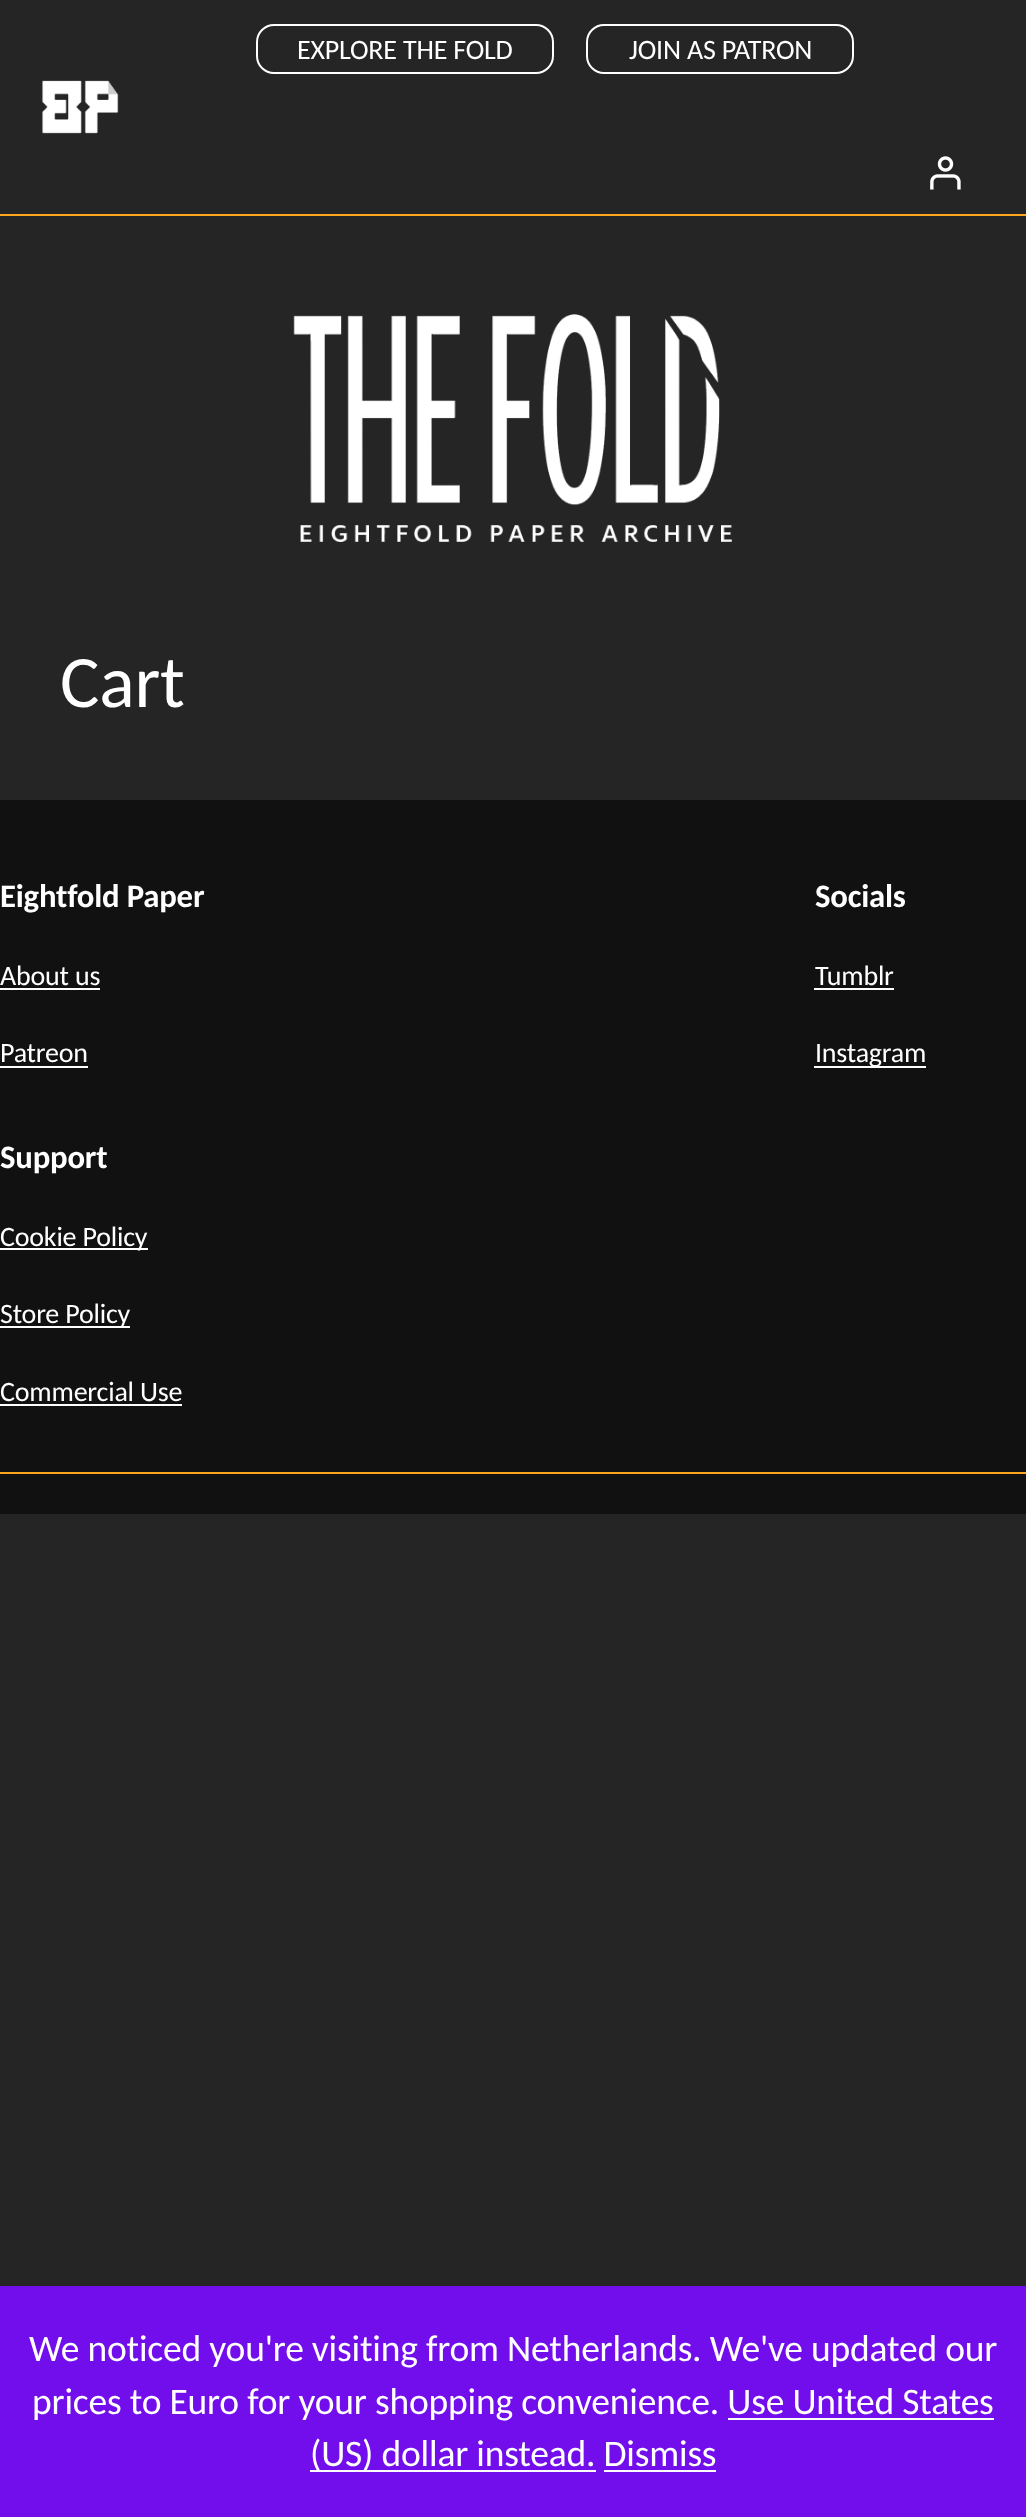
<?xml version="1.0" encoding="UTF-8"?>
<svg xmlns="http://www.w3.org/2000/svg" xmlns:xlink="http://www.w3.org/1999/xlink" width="1026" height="2517">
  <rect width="100%" height="100%" fill="#252525" />
  <rect y="214" width="1026" height="2" fill="#ffa71a" />
  <rect x="257" y="25" width="296" height="48" rx="17" fill="none" stroke="#ffffff" stroke-width="2" />
  <rect x="587" y="25" width="266" height="48" rx="17" fill="none" stroke="#ffffff" stroke-width="2" />
  <image x="930" y="156" width="31" height="34" xlink:href="image1.png" />
  <image x="42" y="80" width="77" height="54" xlink:href="image2.png" />
  <image x="293" y="314" width="439" height="228" xlink:href="image3.png" />
  <rect y="800" width="1026" height="714" fill="#111111" />
  <rect y="1472" width="1026" height="2" fill="#ffa71a" />
  <rect y="988" width="100" height="2" fill="#ffffff" />
  <rect y="1066" width="88" height="2" fill="#ffffff" />
  <rect y="1248" width="148" height="2" fill="#ffffff" />
  <rect y="1326" width="130" height="2" fill="#ffffff" />
  <rect y="1404" width="182" height="2" fill="#ffffff" />
  <rect x="814" y="988" width="80" height="2" fill="#ffffff" />
  <rect x="814" y="1066" width="112" height="2" fill="#ffffff" />
  <rect y="2286" width="1026" height="231" fill="#720eec" />
  <rect x="310" y="2470" width="286" height="2" fill="#fcfbfe" />
  <text x="297" y="59" style="font-family: Carlito; font-size: 28px; letter-spacing: -0.2px; fill: #ffffff">EXPLORE THE FOLD</text>
  <text x="629" y="59" style="font-family: Carlito; font-size: 28px; letter-spacing: -0.2px; fill: #ffffff">JOIN AS PATRON</text>
  <text x="60" y="707" style="font-family: Carlito; font-size: 74px; letter-spacing: -0.2px; fill: #ffffff">Cart</text>
  <text x="0" y="907" style="font-family: Carlito; font-size: 32.75px; font-weight: bold; letter-spacing: -0.2px; fill: #ffffff">Eightfold Paper</text>
  <text x="0" y="985" style="font-family: Carlito; font-size: 28px; letter-spacing: -0.2px; fill: #ffffff">About us</text>
  <text x="0" y="1062" style="font-family: Carlito; font-size: 28px; letter-spacing: -0.2px; fill: #ffffff">Patreon</text>
  <text x="0" y="1168" style="font-family: Carlito; font-size: 32.75px; font-weight: bold; letter-spacing: -0.2px; fill: #ffffff">Support</text>
  <text x="0" y="1246" style="font-family: Carlito; font-size: 28px; letter-spacing: -0.2px; fill: #ffffff">Cookie Policy</text>
  <text x="0" y="1323" style="font-family: Carlito; font-size: 28px; letter-spacing: -0.2px; fill: #ffffff">Store Policy</text>
  <text x="0" y="1401" style="font-family: Carlito; font-size: 28px; letter-spacing: -0.2px; fill: #ffffff">Commercial Use</text>
  <text x="815" y="907" style="font-family: Carlito; font-size: 32.75px; font-weight: bold; letter-spacing: -0.2px; fill: #ffffff">Socials</text>
  <text x="815" y="985" style="font-family: Carlito; font-size: 28px; letter-spacing: -0.2px; fill: #ffffff">Tumblr</text>
  <text x="815" y="1062" style="font-family: Carlito; font-size: 28px; letter-spacing: -0.2px; fill: #ffffff">Instagram</text>
  <text x="29" y="2361" style="font-family: Carlito; font-size: 37.5px; letter-spacing: -0.2px; fill: #ffffff">We noticed you're visiting from Netherlands. We've updated our</text>
  <text x="32" y="2414" style="font-family: Carlito; font-size: 37.5px; letter-spacing: -0.2px; fill: #ffffff">prices to Euro for your shopping convenience. Use United States</text>
  <text x="310" y="2466" style="font-family: Carlito; font-size: 37.5px; letter-spacing: -0.2px; fill: #ffffff">(US) dollar instead. Dismiss</text>
  <rect x="728" y="2418" width="266" height="2" fill="#fcfbfe" />
  <rect x="604" y="2470" width="112" height="2" fill="#fcfbfe" />
</svg>
